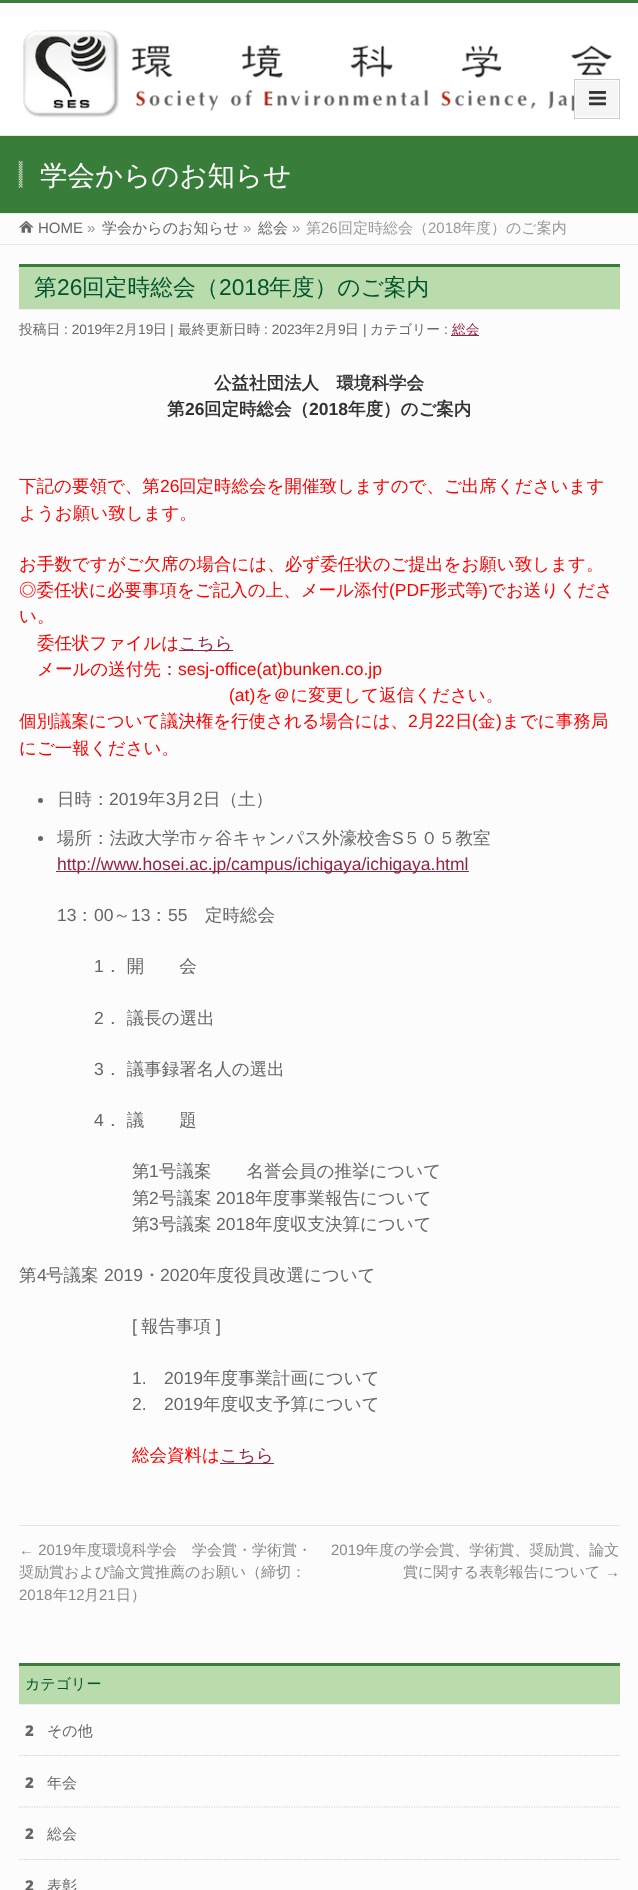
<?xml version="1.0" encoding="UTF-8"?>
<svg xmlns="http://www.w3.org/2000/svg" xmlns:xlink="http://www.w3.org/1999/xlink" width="638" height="1890">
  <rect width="100%" height="100%" fill="#fcfcfc" />
  <rect width="638" height="3" fill="#387d39" />
  <rect y="15" width="638" height="120" fill="#ffffff" />
  <image x="23" y="30" width="589" height="88" xlink:href="image1.png" />
  <rect x="575.5" y="80.5" width="43" height="37" fill="#f5f5f5" stroke="#fefefe" />
  <rect x="574.5" y="79.5" width="45" height="39" fill="none" stroke="#cccccc" />
  <image x="589" y="91" width="17" height="15" xlink:href="image2.png" />
  <rect y="136" width="638" height="77" fill="#387d39" />
  <rect y="135" width="638" height="1" fill="#e9e9e9" />
  <rect y="213" width="638" height="1" fill="#e9e9e9" />
  <image x="18" y="161" width="5" height="27" xlink:href="image3.png" />
  <image x="19" y="220" width="15" height="13" xlink:href="image4.png" />
  <rect y="244" width="638" height="1" fill="#e9e9e9" />
  <rect x="19" y="267" width="601" height="42" fill="#badcad" />
  <rect x="19" y="264" width="601" height="3" fill="#387d39" />
  <rect x="19" y="309" width="601" height="1" fill="#efefef" />
  <rect x="451" y="335" width="28" height="1" fill="#942343" />
  <rect x="179" y="650" width="54" height="1" fill="#942343" />
  <circle cx="40.5" cy="800.5" r="2.5" fill="#666666" />
  <circle cx="40.5" cy="838.5" r="2.5" fill="#666666" />
  <rect x="56" y="871" width="413" height="1" fill="#942343" />
  <rect x="220" y="1463" width="54" height="1" fill="#942343" />
  <rect x="19" y="1525" width="601" height="1" fill="#e5e5e5" />
  <rect x="19" y="1666" width="601" height="38" fill="#badcad" />
  <rect x="19" y="1663" width="601" height="3" fill="#387d39" />
  <rect x="19" y="1704" width="601" height="1" fill="#efefef" />
  <path d="M 19 1755.5 h 601" fill="none" stroke="#cccccc" stroke-width="1.2" stroke-dasharray="1.25 1.25" />
  <path d="M 19 1807 h 601" fill="none" stroke="#cccccc" stroke-width="1.2" stroke-dasharray="1.25 1.25" />
  <path d="M 19 1859.5 h 601" fill="none" stroke="#cccccc" stroke-width="1.2" stroke-dasharray="1.25 1.25" />
  <text x="40" y="185" style="font-family: WenQuanYi Zen Hei; font-size: 27.5px; font-weight: 500; fill: #ffffff">学会からのお知らせ</text>
  <text x="38" y="233" style="font-family: Liberation Sans; font-size: 15px; fill: #666666">HOME</text>
  <text x="87" y="233" style="font-family: Liberation Sans; font-size: 15px; fill: #999999">»</text>
  <text x="102" y="233" style="font-family: WenQuanYi Zen Hei; font-size: 15px; font-weight: 500; fill: #666666">学会からのお知らせ</text>
  <text x="243" y="233" style="font-family: Liberation Sans; font-size: 15px; fill: #999999">»</text>
  <text x="258" y="233" style="font-family: WenQuanYi Zen Hei; font-size: 15px; font-weight: 500; fill: #666666">総会</text>
  <text x="292" y="233" style="font-family: Liberation Sans; font-size: 15px; fill: #999999">»</text>
  <text x="306" y="233" style="font-family: WenQuanYi Zen Hei; font-size: 15px; font-weight: 500; fill: #999999">第</text>
  <text x="321" y="233" style="font-family: Liberation Sans; font-size: 15px; fill: #999999">26</text>
  <text x="338" y="233" style="font-family: WenQuanYi Zen Hei; font-size: 15px; font-weight: 500; fill: #999999">回定時総会（</text>
  <text x="428" y="233" style="font-family: Liberation Sans; font-size: 15px; fill: #999999">2018</text>
  <text x="461" y="233" style="font-family: WenQuanYi Zen Hei; font-size: 15px; font-weight: 500; fill: #999999">年度）のご案内</text>
  <text x="34" y="295" style="font-family: WenQuanYi Zen Hei; font-size: 22.75px; font-weight: 500; fill: #00552e">第</text>
  <text x="57" y="295" style="font-family: Liberation Sans; font-size: 22.75px; fill: #00552e">26</text>
  <text x="82" y="295" style="font-family: WenQuanYi Zen Hei; font-size: 22.75px; font-weight: 500; fill: #00552e">回定時総会（</text>
  <text x="219" y="295" style="font-family: Liberation Sans; font-size: 22.75px; fill: #00552e">2018</text>
  <text x="269" y="295" style="font-family: WenQuanYi Zen Hei; font-size: 22.75px; font-weight: 500; fill: #00552e">年度）のご案内</text>
  <text x="19" y="334" style="font-family: WenQuanYi Zen Hei; font-size: 13.75px; font-weight: 500; fill: #666666">投稿日</text>
  <text x="64" y="334" style="font-family: Liberation Sans; font-size: 13.75px; fill: #666666">: 2019</text>
  <text x="102" y="334" style="font-family: WenQuanYi Zen Hei; font-size: 13.75px; font-weight: 500; fill: #666666">年</text>
  <text x="116" y="334" style="font-family: Liberation Sans; font-size: 13.75px; fill: #666666">2</text>
  <text x="124" y="334" style="font-family: WenQuanYi Zen Hei; font-size: 13.75px; font-weight: 500; fill: #666666">月</text>
  <text x="138" y="334" style="font-family: Liberation Sans; font-size: 13.75px; fill: #666666">19</text>
  <text x="153" y="334" style="font-family: WenQuanYi Zen Hei; font-size: 13.75px; font-weight: 500; fill: #666666">日</text>
  <text x="170" y="334" style="font-family: Liberation Sans; font-size: 13.75px; fill: #666666">|</text>
  <text x="178" y="334" style="font-family: WenQuanYi Zen Hei; font-size: 13.75px; font-weight: 500; fill: #666666">最終更新日時</text>
  <text x="264" y="334" style="font-family: Liberation Sans; font-size: 13.75px; fill: #666666">: 2023</text>
  <text x="302" y="334" style="font-family: WenQuanYi Zen Hei; font-size: 13.75px; font-weight: 500; fill: #666666">年</text>
  <text x="316" y="334" style="font-family: Liberation Sans; font-size: 13.75px; fill: #666666">2</text>
  <text x="324" y="334" style="font-family: WenQuanYi Zen Hei; font-size: 13.75px; font-weight: 500; fill: #666666">月</text>
  <text x="338" y="334" style="font-family: Liberation Sans; font-size: 13.75px; fill: #666666">9</text>
  <text x="345" y="334" style="font-family: WenQuanYi Zen Hei; font-size: 13.75px; font-weight: 500; fill: #666666">日</text>
  <text x="363" y="334" style="font-family: Liberation Sans; font-size: 13.75px; fill: #666666">|</text>
  <text x="370" y="334" style="font-family: WenQuanYi Zen Hei; font-size: 13.75px; font-weight: 500; fill: #666666">カテゴリー</text>
  <text x="444" y="334" style="font-family: Liberation Sans; font-size: 13.75px; fill: #666666">:</text>
  <text x="452" y="334" style="font-family: WenQuanYi Zen Hei; font-size: 13.75px; font-weight: 500; fill: #942343">総会</text>
  <text x="214" y="389" style="font-family: WenQuanYi Zen Hei; font-size: 17.5px; font-weight: bold; fill: #333333">公益社団法人　環境科学会</text>
  <text x="167" y="415" style="font-family: WenQuanYi Zen Hei; font-size: 17.5px; font-weight: bold; fill: #333333">第</text>
  <text x="185" y="415" style="font-family: Liberation Sans; font-size: 17.5px; font-weight: bold; fill: #333333">26</text>
  <text x="204" y="415" style="font-family: WenQuanYi Zen Hei; font-size: 17.5px; font-weight: bold; fill: #333333">回定時総会（</text>
  <text x="309" y="415" style="font-family: Liberation Sans; font-size: 17.5px; font-weight: bold; fill: #333333">2018</text>
  <text x="348" y="415" style="font-family: WenQuanYi Zen Hei; font-size: 17.5px; font-weight: bold; fill: #333333">年度）のご案内</text>
  <text x="19" y="492" style="font-family: WenQuanYi Zen Hei; font-size: 17.5px; font-weight: 500; fill: #ff0000">下記の要領で、第</text>
  <text x="160" y="492" style="font-family: Liberation Sans; font-size: 17.5px; fill: #ff0000">26</text>
  <text x="179" y="492" style="font-family: WenQuanYi Zen Hei; font-size: 17.5px; font-weight: 500; fill: #ff0000">回定時総会を開催致しますので、ご出席くださいます</text>
  <text x="19" y="519" style="font-family: WenQuanYi Zen Hei; font-size: 17.5px; font-weight: 500; fill: #ff0000">ようお願い致します。</text>
  <text x="19" y="570" style="font-family: WenQuanYi Zen Hei; font-size: 17.5px; font-weight: 500; fill: #ff0000">お手数ですがご欠席の場合には、必ず委任状のご提出をお願い致します。</text>
  <text x="19" y="596" style="font-family: WenQuanYi Zen Hei; font-size: 17.5px; font-weight: 500; fill: #ff0000">◎委任状に必要事項をご記入の上、メール添付</text>
  <text x="389" y="596" style="font-family: Liberation Sans; font-size: 17.5px; fill: #ff0000">(PDF</text>
  <text x="430" y="596" style="font-family: WenQuanYi Zen Hei; font-size: 17.5px; font-weight: 500; fill: #ff0000">形式等</text>
  <text x="482" y="596" style="font-family: Liberation Sans; font-size: 17.5px; fill: #ff0000">)</text>
  <text x="488" y="596" style="font-family: WenQuanYi Zen Hei; font-size: 17.5px; font-weight: 500; fill: #ff0000">でお送りくださ</text>
  <text x="19" y="622" style="font-family: WenQuanYi Zen Hei; font-size: 17.5px; font-weight: 500; fill: #ff0000">い。</text>
  <text x="37" y="649" style="font-family: WenQuanYi Zen Hei; font-size: 17.5px; font-weight: 500; fill: #ff0000">委任状ファイルは</text>
  <text x="179" y="649" style="font-family: WenQuanYi Zen Hei; font-size: 17.5px; font-weight: 500; fill: #942343">こちら</text>
  <text x="37" y="675" style="font-family: WenQuanYi Zen Hei; font-size: 17.5px; font-weight: 500; fill: #ff0000">メールの送付先：</text>
  <text x="178" y="675" style="font-family: Liberation Sans; font-size: 17.5px; fill: #ff0000">sesj-office(at)bunken.co.jp</text>
  <text x="229" y="701" style="font-family: Liberation Sans; font-size: 17.5px; fill: #ff0000">(at)</text>
  <text x="255" y="701" style="font-family: WenQuanYi Zen Hei; font-size: 17.5px; font-weight: 500; fill: #ff0000">を＠に変更して返信ください。</text>
  <text x="19" y="727" style="font-family: WenQuanYi Zen Hei; font-size: 17.5px; font-weight: 500; fill: #ff0000">個別議案について議決権を行使される場合には、</text>
  <text x="408" y="727" style="font-family: Liberation Sans; font-size: 17.5px; fill: #ff0000">2</text>
  <text x="418" y="727" style="font-family: WenQuanYi Zen Hei; font-size: 17.5px; font-weight: 500; fill: #ff0000">月</text>
  <text x="435" y="727" style="font-family: Liberation Sans; font-size: 17.5px; fill: #ff0000">22</text>
  <text x="455" y="727" style="font-family: WenQuanYi Zen Hei; font-size: 17.5px; font-weight: 500; fill: #ff0000">日</text>
  <text x="472" y="727" style="font-family: Liberation Sans; font-size: 17.5px; fill: #ff0000">(</text>
  <text x="478" y="727" style="font-family: WenQuanYi Zen Hei; font-size: 17.5px; font-weight: 500; fill: #ff0000">金</text>
  <text x="496" y="727" style="font-family: Liberation Sans; font-size: 17.5px; fill: #ff0000">)</text>
  <text x="502" y="727" style="font-family: WenQuanYi Zen Hei; font-size: 17.5px; font-weight: 500; fill: #ff0000">までに事務局</text>
  <text x="19" y="754" style="font-family: WenQuanYi Zen Hei; font-size: 17.5px; font-weight: 500; fill: #ff0000">にご一報ください。</text>
  <text x="57" y="805" style="font-family: WenQuanYi Zen Hei; font-size: 17.5px; font-weight: 500; fill: #666666">日時：</text>
  <text x="109" y="805" style="font-family: Liberation Sans; font-size: 17.5px; fill: #666666">2019</text>
  <text x="148" y="805" style="font-family: WenQuanYi Zen Hei; font-size: 17.5px; font-weight: 500; fill: #666666">年</text>
  <text x="166" y="805" style="font-family: Liberation Sans; font-size: 17.5px; fill: #666666">3</text>
  <text x="175" y="805" style="font-family: WenQuanYi Zen Hei; font-size: 17.5px; font-weight: 500; fill: #666666">月</text>
  <text x="193" y="805" style="font-family: Liberation Sans; font-size: 17.5px; fill: #666666">2</text>
  <text x="203" y="805" style="font-family: WenQuanYi Zen Hei; font-size: 17.5px; font-weight: 500; fill: #666666">日（土）</text>
  <text x="57" y="844" style="font-family: WenQuanYi Zen Hei; font-size: 17.5px; font-weight: 500; fill: #666666">場所：法政大学市ヶ谷キャンパス外濠校舎</text>
  <text x="392" y="844" style="font-family: Liberation Sans; font-size: 17.5px; fill: #666666">S</text>
  <text x="403" y="844" style="font-family: WenQuanYi Zen Hei; font-size: 17.5px; font-weight: 500; fill: #666666">５０５教室</text>
  <text x="57" y="870" style="font-family: Liberation Sans; font-size: 17.5px; fill: #942343">http://www.hosei.ac.jp/campus/ichigaya/ichigaya.html</text>
  <text x="57" y="921" style="font-family: Liberation Sans; font-size: 17.5px; fill: #666666">13</text>
  <text x="76" y="921" style="font-family: WenQuanYi Zen Hei; font-size: 17.5px; font-weight: 500; fill: #666666">：</text>
  <text x="94" y="921" style="font-family: Liberation Sans; font-size: 17.5px; fill: #666666">00</text>
  <text x="113" y="921" style="font-family: WenQuanYi Zen Hei; font-size: 17.5px; font-weight: 500; fill: #666666">～</text>
  <text x="131" y="921" style="font-family: Liberation Sans; font-size: 17.5px; fill: #666666">13</text>
  <text x="150" y="921" style="font-family: WenQuanYi Zen Hei; font-size: 17.5px; font-weight: 500; fill: #666666">：</text>
  <text x="168" y="921" style="font-family: Liberation Sans; font-size: 17.5px; fill: #666666">55</text>
  <text x="205" y="921" style="font-family: WenQuanYi Zen Hei; font-size: 17.5px; font-weight: 500; fill: #666666">定時総会</text>
  <text x="94" y="972" style="font-family: Liberation Sans; font-size: 17.5px; fill: #666666">1</text>
  <text x="104" y="972" style="font-family: WenQuanYi Zen Hei; font-size: 17.5px; font-weight: 500; fill: #666666">． 開　　会</text>
  <text x="94" y="1024" style="font-family: Liberation Sans; font-size: 17.5px; fill: #666666">2</text>
  <text x="104" y="1024" style="font-family: WenQuanYi Zen Hei; font-size: 17.5px; font-weight: 500; fill: #666666">． 議長の選出</text>
  <text x="94" y="1075" style="font-family: Liberation Sans; font-size: 17.5px; fill: #666666">3</text>
  <text x="104" y="1075" style="font-family: WenQuanYi Zen Hei; font-size: 17.5px; font-weight: 500; fill: #666666">． 議事録署名人の選出</text>
  <text x="94" y="1126" style="font-family: Liberation Sans; font-size: 17.5px; fill: #666666">4</text>
  <text x="104" y="1126" style="font-family: WenQuanYi Zen Hei; font-size: 17.5px; font-weight: 500; fill: #666666">． 議　　題</text>
  <text x="132" y="1177" style="font-family: WenQuanYi Zen Hei; font-size: 17.5px; font-weight: 500; fill: #666666">第</text>
  <text x="149" y="1177" style="font-family: Liberation Sans; font-size: 17.5px; fill: #666666">1</text>
  <text x="159" y="1177" style="font-family: WenQuanYi Zen Hei; font-size: 17.5px; font-weight: 500; fill: #666666">号議案　　名誉会員の推挙について</text>
  <text x="132" y="1204" style="font-family: WenQuanYi Zen Hei; font-size: 17.5px; font-weight: 500; fill: #666666">第</text>
  <text x="149" y="1204" style="font-family: Liberation Sans; font-size: 17.5px; fill: #666666">2</text>
  <text x="159" y="1204" style="font-family: WenQuanYi Zen Hei; font-size: 17.5px; font-weight: 500; fill: #666666">号議案</text>
  <text x="216" y="1204" style="font-family: Liberation Sans; font-size: 17.5px; fill: #666666">2018</text>
  <text x="255" y="1204" style="font-family: WenQuanYi Zen Hei; font-size: 17.5px; font-weight: 500; fill: #666666">年度事業報告について</text>
  <text x="132" y="1230" style="font-family: WenQuanYi Zen Hei; font-size: 17.5px; font-weight: 500; fill: #666666">第</text>
  <text x="149" y="1230" style="font-family: Liberation Sans; font-size: 17.5px; fill: #666666">3</text>
  <text x="159" y="1230" style="font-family: WenQuanYi Zen Hei; font-size: 17.5px; font-weight: 500; fill: #666666">号議案</text>
  <text x="216" y="1230" style="font-family: Liberation Sans; font-size: 17.5px; fill: #666666">2018</text>
  <text x="255" y="1230" style="font-family: WenQuanYi Zen Hei; font-size: 17.5px; font-weight: 500; fill: #666666">年度収支決算について</text>
  <text x="19" y="1281" style="font-family: WenQuanYi Zen Hei; font-size: 17.5px; font-weight: 500; fill: #666666">第</text>
  <text x="37" y="1281" style="font-family: Liberation Sans; font-size: 17.5px; fill: #666666">4</text>
  <text x="46" y="1281" style="font-family: WenQuanYi Zen Hei; font-size: 17.5px; font-weight: 500; fill: #666666">号議案</text>
  <text x="104" y="1281" style="font-family: Liberation Sans; font-size: 17.5px; fill: #666666">2019</text>
  <text x="143" y="1281" style="font-family: WenQuanYi Zen Hei; font-size: 17.5px; font-weight: 500; fill: #666666">・</text>
  <text x="160" y="1281" style="font-family: Liberation Sans; font-size: 17.5px; fill: #666666">2020</text>
  <text x="199" y="1281" style="font-family: WenQuanYi Zen Hei; font-size: 17.5px; font-weight: 500; fill: #666666">年度役員改選について</text>
  <text x="132" y="1332" style="font-family: Liberation Sans; font-size: 17.5px; fill: #666666">[</text>
  <text x="141" y="1332" style="font-family: WenQuanYi Zen Hei; font-size: 17.5px; font-weight: 500; fill: #666666">報告事項</text>
  <text x="216" y="1332" style="font-family: Liberation Sans; font-size: 17.5px; fill: #666666">]</text>
  <text x="132" y="1384" style="font-family: Liberation Sans; font-size: 17.5px; fill: #666666">1.</text>
  <text x="164" y="1384" style="font-family: Liberation Sans; font-size: 17.5px; fill: #666666">2019</text>
  <text x="203" y="1384" style="font-family: WenQuanYi Zen Hei; font-size: 17.5px; font-weight: 500; fill: #666666">年度事業計画について</text>
  <text x="132" y="1410" style="font-family: Liberation Sans; font-size: 17.5px; fill: #666666">2.</text>
  <text x="164" y="1410" style="font-family: Liberation Sans; font-size: 17.5px; fill: #666666">2019</text>
  <text x="203" y="1410" style="font-family: WenQuanYi Zen Hei; font-size: 17.5px; font-weight: 500; fill: #666666">年度収支予算について</text>
  <text x="132" y="1461" style="font-family: WenQuanYi Zen Hei; font-size: 17.5px; font-weight: 500; fill: #ff0000">総会資料は</text>
  <text x="220" y="1461" style="font-family: WenQuanYi Zen Hei; font-size: 17.5px; font-weight: 500; fill: #942343">こちら</text>
  <text x="19" y="1555" style="font-family: Liberation Sans; font-size: 15px; fill: #888888">← 2019</text>
  <text x="72" y="1555" style="font-family: WenQuanYi Zen Hei; font-size: 15px; font-weight: 500; fill: #888888">年度環境科学会　学会賞・学術賞・</text>
  <text x="19" y="1577" style="font-family: WenQuanYi Zen Hei; font-size: 15px; font-weight: 500; fill: #888888">奨励賞および論文賞推薦のお願い（締切：</text>
  <text x="19" y="1600" style="font-family: Liberation Sans; font-size: 15px; fill: #888888">2018</text>
  <text x="53" y="1600" style="font-family: WenQuanYi Zen Hei; font-size: 15px; font-weight: 500; fill: #888888">年</text>
  <text x="68" y="1600" style="font-family: Liberation Sans; font-size: 15px; fill: #888888">12</text>
  <text x="84" y="1600" style="font-family: WenQuanYi Zen Hei; font-size: 15px; font-weight: 500; fill: #888888">月</text>
  <text x="99" y="1600" style="font-family: Liberation Sans; font-size: 15px; fill: #888888">21</text>
  <text x="116" y="1600" style="font-family: WenQuanYi Zen Hei; font-size: 15px; font-weight: 500; fill: #888888">日）</text>
  <text x="331" y="1555" style="font-family: Liberation Sans; font-size: 15px; fill: #888888">2019</text>
  <text x="364" y="1555" style="font-family: WenQuanYi Zen Hei; font-size: 15px; font-weight: 500; fill: #888888">年度の学会賞、学術賞、奨励賞、論文</text>
  <text x="403" y="1577" style="font-family: WenQuanYi Zen Hei; font-size: 15px; font-weight: 500; fill: #888888">賞に関する表彰報告について</text>
  <text x="605" y="1577" style="font-family: Liberation Sans; font-size: 15px; fill: #888888">→</text>
  <text x="25" y="1689" style="font-family: WenQuanYi Zen Hei; font-size: 15px; font-weight: 500; fill: #00552e">カテゴリー</text>
  <text x="25" y="1736" style="font-family: Noto Sans; font-size: 15px; font-weight: 900; fill: #666666">2</text>
  <text x="47" y="1736" style="font-family: WenQuanYi Zen Hei; font-size: 15px; font-weight: 500; fill: #666666">その他</text>
  <text x="25" y="1788" style="font-family: Noto Sans; font-size: 15px; font-weight: 900; fill: #666666">2</text>
  <text x="47" y="1788" style="font-family: WenQuanYi Zen Hei; font-size: 15px; font-weight: 500; fill: #666666">年会</text>
  <text x="25" y="1839" style="font-family: Noto Sans; font-size: 15px; font-weight: 900; fill: #666666">2</text>
  <text x="47" y="1839" style="font-family: WenQuanYi Zen Hei; font-size: 15px; font-weight: 500; fill: #666666">総会</text>
  <text x="25" y="1891" style="font-family: Noto Sans; font-size: 15px; font-weight: 900; fill: #666666">2</text>
  <text x="47" y="1891" style="font-family: WenQuanYi Zen Hei; font-size: 15px; font-weight: 500; fill: #666666">表彰</text>
</svg>
